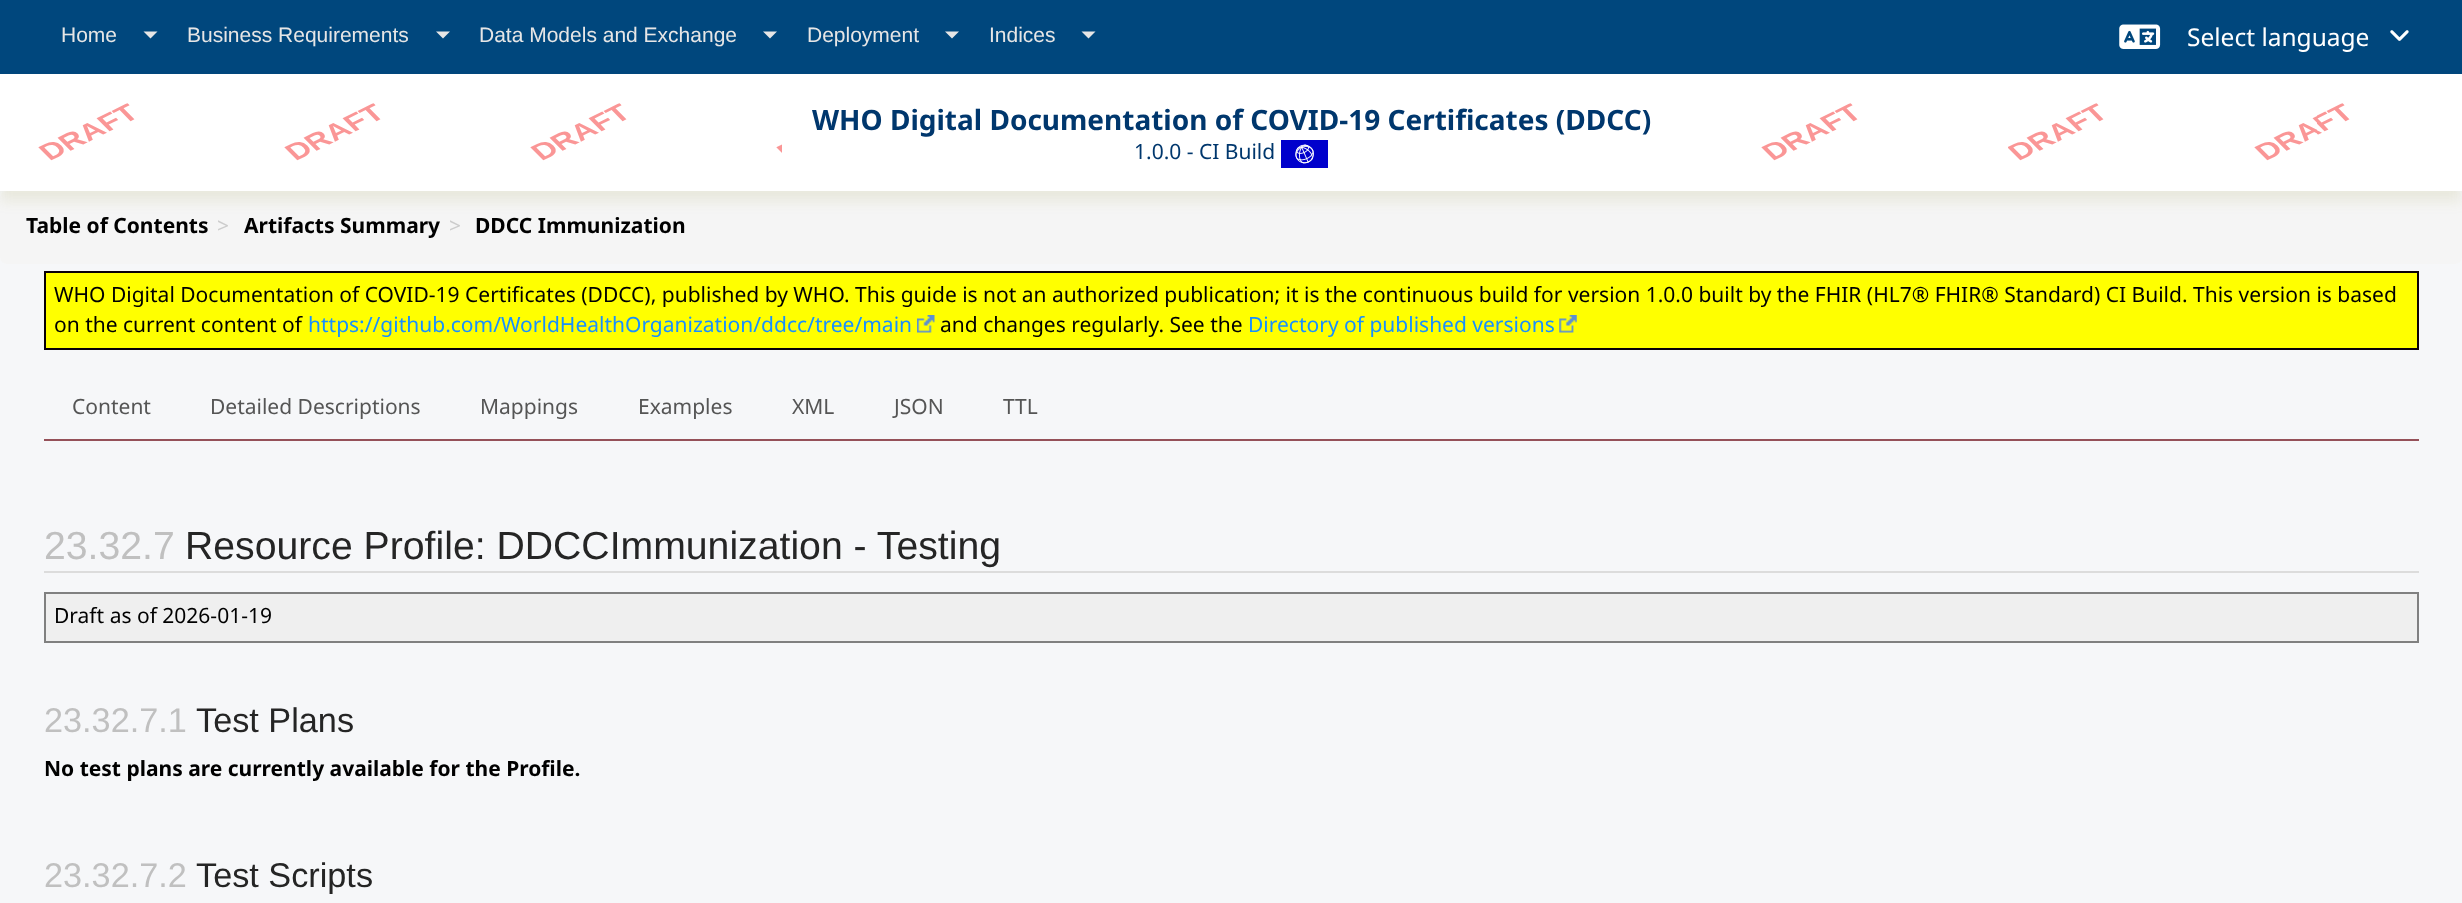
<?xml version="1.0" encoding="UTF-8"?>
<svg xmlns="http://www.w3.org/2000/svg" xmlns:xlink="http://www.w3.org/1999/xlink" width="2462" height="903">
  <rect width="100%" height="100%" fill="#f6f7f9" />
  <rect width="2462" height="74" fill="#00477d" />
  <path d="M 143.5 31.5 h 14 l -7 7 z" fill="#e6e6e6" />
  <path d="M 436 31.5 h 14 l -7 7 z" fill="#e6e6e6" />
  <path d="M 763 31.5 h 14 l -7 7 z" fill="#e6e6e6" />
  <path d="M 945 31.5 h 14 l -7 7 z" fill="#e6e6e6" />
  <path d="M 1081.5 31.5 h 14 l -7 7 z" fill="#e6e6e6" />
  <image x="2119" y="24" width="42" height="25" xlink:href="image1.png" />
  <image x="2390" y="30" width="19" height="11" xlink:href="image2.png" />
  <rect y="191" width="2462" height="73" rx="7" fill="#f5f5f5" />
  <rect y="84" width="2462" height="117" fill="#82820d" fill-opacity="0.1" filter="blur(7px)" />
  <rect y="74" width="2462" height="117" fill="#ffffff" />
  <image x="38" y="103" width="2312" height="58" xlink:href="image3.png" />
  <rect x="782" y="88" width="898" height="98" rx="9" fill="#ffffff" />
  <image x="1281" y="140" width="47" height="28" xlink:href="image4.png" />
  <rect x="45" y="272" width="2373" height="77" fill="#ffff00" stroke="#0a0008" stroke-width="2" />
  <image x="917" y="315" width="18" height="18" xlink:href="image5.png" />
  <image x="1559" y="315" width="18" height="18" xlink:href="image6.png" />
  <rect x="44" y="439" width="2375" height="2" fill="#955159" />
  <rect x="44" y="571" width="2375" height="2" fill="#dcdcdc" />
  <rect x="46" y="594" width="2371" height="47" fill="#efefef" />
  <rect x="44" y="592" width="2375" height="2" fill="#808080" />
  <rect x="2417" y="592" width="2" height="50" fill="#808080" />
  <rect x="44" y="641" width="2375" height="2" fill="#808080" />
  <rect x="44" y="592" width="2" height="50" fill="#808080" />
  <text x="61" y="42" style="font-family: Liberation Sans; font-size: 21px; fill: #e6e6e6">Home</text>
  <text x="187" y="42" style="font-family: Liberation Sans; font-size: 21px; fill: #e6e6e6">Business Requirements</text>
  <text x="479" y="42" style="font-family: Liberation Sans; font-size: 21px; fill: #e6e6e6">Data Models and Exchange</text>
  <text x="807" y="42" style="font-family: Liberation Sans; font-size: 21px; fill: #e6e6e6">Deployment</text>
  <text x="989" y="42" style="font-family: Liberation Sans; font-size: 21px; fill: #e6e6e6">Indices</text>
  <text x="2187" y="46" style="font-family: Noto Sans; font-size: 24.5px; fill: #ffffff">Select language</text>
  <text x="812" y="130" style="font-family: Noto Sans; font-size: 28px; font-weight: bold; fill: #00376d">WHO Digital Documentation of COVID-19 Certificates (DDCC)</text>
  <text x="1134" y="159" style="font-family: Noto Sans; font-size: 21px; fill: #00376d">1.0.0 - CI Build</text>
  <text x="26" y="233" style="font-family: Noto Sans; font-size: 21px; font-weight: bold; fill: #000000">Table of Contents</text>
  <text x="217" y="233" style="font-family: Noto Sans; font-size: 21px; fill: #cccccc">&gt;</text>
  <text x="244" y="233" style="font-family: Noto Sans; font-size: 21px; font-weight: bold; fill: #000000">Artifacts Summary</text>
  <text x="449" y="233" style="font-family: Noto Sans; font-size: 21px; fill: #cccccc">&gt;</text>
  <text x="475" y="233" style="font-family: Noto Sans; font-size: 21px; font-weight: bold; fill: #000000">DDCC Immunization</text>
  <text x="54" y="302" style="font-family: Noto Sans; font-size: 21px; fill: #000000">WHO Digital Documentation of COVID-19 Certificates (DDCC), published by WHO. This guide is not an authorized publication; it is the continuous build for version 1.0.0 built by the FHIR (HL7® FHIR® Standard) CI Build. This version is based</text>
  <text x="54" y="332" style="font-family: Noto Sans; font-size: 21px; fill: #000000">on the current content of</text>
  <text x="308" y="332" style="font-family: Noto Sans; font-size: 21px; fill: #1890ff">https://github.com/WorldHealthOrganization/ddcc/tree/main</text>
  <text x="940" y="332" style="font-family: Noto Sans; font-size: 21px; fill: #000000">and changes regularly. See the</text>
  <text x="1248" y="332" style="font-family: Noto Sans; font-size: 21px; fill: #1890ff">Directory of published versions</text>
  <text x="72" y="414" style="font-family: Noto Sans; font-size: 21px; fill: #555555">Content</text>
  <text x="210" y="414" style="font-family: Noto Sans; font-size: 21px; fill: #555555">Detailed Descriptions</text>
  <text x="480" y="414" style="font-family: Noto Sans; font-size: 21px; fill: #555555">Mappings</text>
  <text x="638" y="414" style="font-family: Noto Sans; font-size: 21px; fill: #555555">Examples</text>
  <text x="792" y="414" style="font-family: Noto Sans; font-size: 21px; fill: #555555">XML</text>
  <text x="894" y="414" style="font-family: Noto Sans; font-size: 21px; fill: #555555">JSON</text>
  <text x="1003" y="414" style="font-family: Noto Sans; font-size: 21px; fill: #555555">TTL</text>
  <text x="44" y="559" style="font-family: Liberation Sans; font-size: 39.2px; fill: #c0c0c0">23.32.7</text>
  <text x="185" y="559" style="font-family: Liberation Sans; font-size: 39.2px; fill: #252525">Resource Profile: DDCCImmunization - Testing</text>
  <text x="54" y="623" style="font-family: Noto Sans; font-size: 21px; fill: #000000">Draft as of 2026-01-19</text>
  <text x="44" y="732" style="font-family: Liberation Sans; font-size: 34.25px; fill: #c0c0c0">23.32.7.1</text>
  <text x="196" y="732" style="font-family: Liberation Sans; font-size: 34.25px; fill: #252525">Test Plans</text>
  <text x="44" y="776" style="font-family: Noto Sans; font-size: 21px; font-weight: bold; fill: #000000">No test plans are currently available for the Profile.</text>
  <text x="44" y="887" style="font-family: Liberation Sans; font-size: 34.25px; fill: #c0c0c0">23.32.7.2</text>
  <text x="196" y="887" style="font-family: Liberation Sans; font-size: 34.25px; fill: #252525">Test Scripts</text>
</svg>
